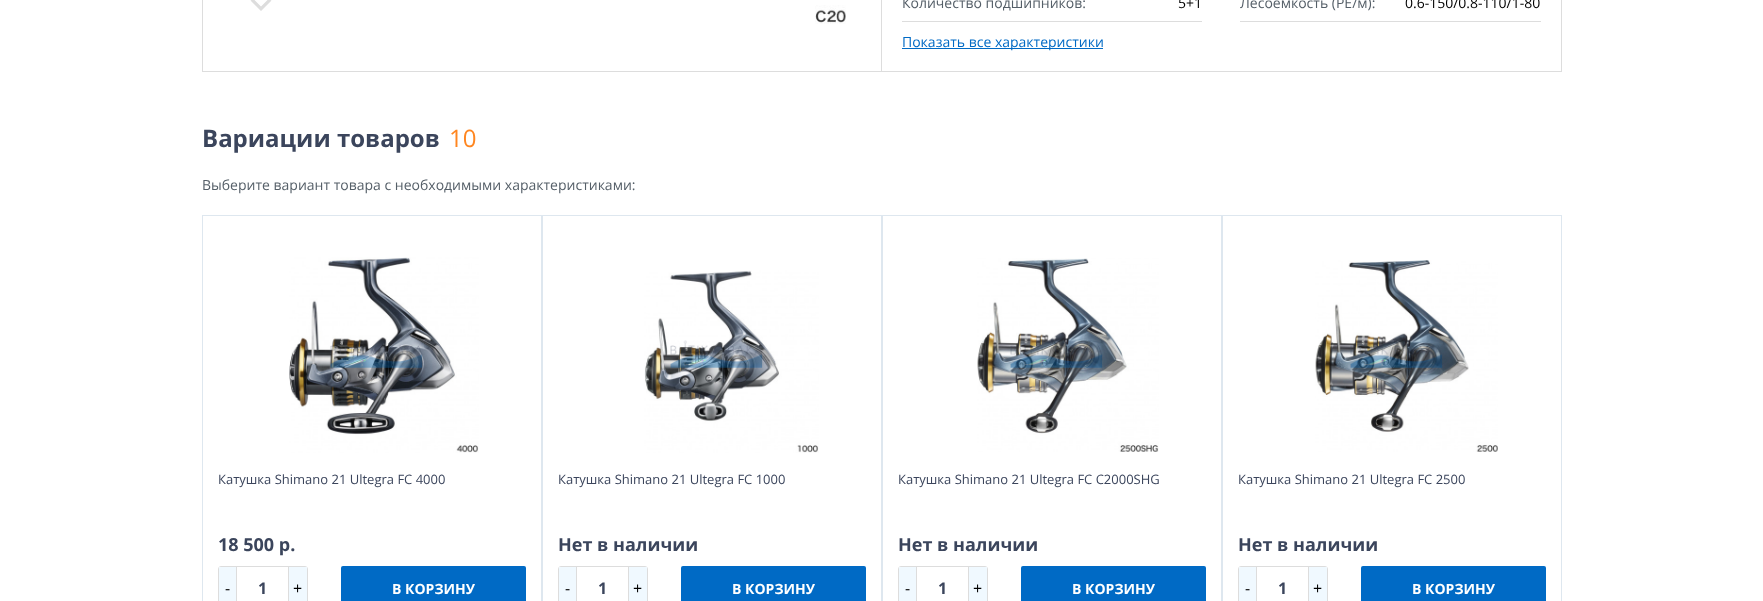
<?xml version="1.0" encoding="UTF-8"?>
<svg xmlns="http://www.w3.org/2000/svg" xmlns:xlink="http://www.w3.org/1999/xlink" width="1763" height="601">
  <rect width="100%" height="100%" fill="#ffffff" />
  <rect x="202.5" y="-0.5" width="679" height="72" fill="none" stroke="#dddddd" />
  <path d="M 253.5 -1 l 7.5 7.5 l 7.5 -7.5 l 3 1.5 l -10.5 10.5 l -10.5 -10.5 z" fill="#dddddd" />
  <image x="815" y="5" width="31" height="19" xlink:href="image1.png" />
  <rect x="1561" width="1" height="72" fill="#dddddd" />
  <rect x="882" y="71" width="680" height="1" fill="#dddddd" />
  <rect x="902" y="21" width="300" height="1" fill="#dddddd" />
  <rect x="1240" y="21" width="301" height="1" fill="#dddddd" />
  <rect x="902" y="48" width="201" height="1" fill="#006ac5" />
  <rect x="202.5" y="215.5" width="339" height="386" fill="none" stroke="#dee7ef" />
  <image x="289" y="257" width="190" height="196" xlink:href="image2.png" />
  <rect x="218.5" y="566.5" width="89" height="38" rx="2.5" fill="none" stroke="#dddddd" />
  <rect x="219" y="567" width="17" height="34" fill="#f0f9ff" />
  <rect x="288" y="567" width="1" height="34" fill="#dddddd" />
  <rect x="236" y="567" width="1" height="34" fill="#dddddd" />
  <rect x="289" y="567" width="18" height="34" fill="#f0f9ff" />
  <rect x="341" y="566" width="185" height="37" rx="2" fill="#006ac5" />
  <rect x="542.5" y="215.5" width="339" height="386" fill="none" stroke="#dee7ef" />
  <image x="644" y="270" width="175" height="183" xlink:href="image3.png" />
  <rect x="558.5" y="566.5" width="89" height="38" rx="2.5" fill="none" stroke="#dddddd" />
  <rect x="559" y="567" width="17" height="34" fill="#f0f9ff" />
  <rect x="628" y="567" width="1" height="34" fill="#dddddd" />
  <rect x="576" y="567" width="1" height="34" fill="#dddddd" />
  <rect x="629" y="567" width="18" height="34" fill="#f0f9ff" />
  <rect x="681" y="566" width="185" height="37" rx="2" fill="#006ac5" />
  <rect x="882.5" y="215.5" width="339" height="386" fill="none" stroke="#dee7ef" />
  <image x="977" y="258" width="182" height="194" xlink:href="image4.png" />
  <rect x="898.5" y="566.5" width="89" height="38" rx="2.5" fill="none" stroke="#dddddd" />
  <rect x="899" y="567" width="17" height="34" fill="#f0f9ff" />
  <rect x="968" y="567" width="1" height="34" fill="#dddddd" />
  <rect x="916" y="567" width="1" height="34" fill="#dddddd" />
  <rect x="969" y="567" width="18" height="34" fill="#f0f9ff" />
  <rect x="1021" y="566" width="185" height="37" rx="2" fill="#006ac5" />
  <rect x="1222.5" y="215.5" width="339" height="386" fill="none" stroke="#dee7ef" />
  <image x="1315" y="260" width="183" height="192" xlink:href="image5.png" />
  <rect x="1238.5" y="566.5" width="89" height="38" rx="2.5" fill="none" stroke="#dddddd" />
  <rect x="1239" y="567" width="17" height="34" fill="#f0f9ff" />
  <rect x="1308" y="567" width="1" height="34" fill="#dddddd" />
  <rect x="1256" y="567" width="1" height="34" fill="#dddddd" />
  <rect x="1309" y="567" width="18" height="34" fill="#f0f9ff" />
  <rect x="1361" y="566" width="185" height="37" rx="2" fill="#006ac5" />
  <text x="902" y="8" style="font-family: Open Sans; font-size: 14px; fill: #555f68">Количество подшипников:</text>
  <text x="1178" y="8" style="font-family: Open Sans; font-size: 14px; fill: #000000">5+1</text>
  <text x="1240" y="8" style="font-family: Open Sans; font-size: 14px; fill: #555f68">Лесоёмкость (РЕ/м):</text>
  <text x="1405" y="8" style="font-family: Open Sans; font-size: 14px; fill: #000000">0.6-150/0.8-110/1-80</text>
  <text x="902" y="47" style="font-family: Open Sans; font-size: 14px; fill: #006ac5">Показать все характеристики</text>
  <text x="202" y="147" style="font-family: Open Sans; font-size: 24px; font-weight: bold; fill: #3b455c">Вариации товаров</text>
  <text x="449" y="147" style="font-family: Open Sans; font-size: 24px; fill: #ff8620">10</text>
  <text x="202" y="190" style="font-family: Open Sans; font-size: 14px; fill: #555f68">Выберите вариант товара с необходимыми характеристиками:</text>
  <text x="218" y="484" style="font-family: Open Sans; font-size: 13px; fill: #3b455c">Катушка Shimano 21 Ultegra FC 4000</text>
  <text x="218" y="551" style="font-family: Open Sans; font-size: 18px; font-weight: bold; fill: #3b455c">18 500 р.</text>
  <text x="225" y="594" style="font-family: Open Sans; font-size: 16px; fill: #000000">-</text>
  <text x="258" y="594" style="font-family: Open Sans; font-size: 16px; font-weight: bold; fill: #3b455c">1</text>
  <text x="293" y="594" style="font-family: Open Sans; font-size: 16px; fill: #000000">+</text>
  <text x="392" y="594" style="font-family: Open Sans; font-size: 14px; font-weight: bold; fill: #ffffff">В КОРЗИНУ</text>
  <text x="558" y="484" style="font-family: Open Sans; font-size: 13px; fill: #3b455c">Катушка Shimano 21 Ultegra FC 1000</text>
  <text x="558" y="551" style="font-family: Open Sans; font-size: 18px; font-weight: bold; fill: #3b455c">Нет в наличии</text>
  <text x="565" y="594" style="font-family: Open Sans; font-size: 16px; fill: #000000">-</text>
  <text x="598" y="594" style="font-family: Open Sans; font-size: 16px; font-weight: bold; fill: #3b455c">1</text>
  <text x="633" y="594" style="font-family: Open Sans; font-size: 16px; fill: #000000">+</text>
  <text x="732" y="594" style="font-family: Open Sans; font-size: 14px; font-weight: bold; fill: #ffffff">В КОРЗИНУ</text>
  <text x="898" y="484" style="font-family: Open Sans; font-size: 13px; fill: #3b455c">Катушка Shimano 21 Ultegra FC C2000SHG</text>
  <text x="898" y="551" style="font-family: Open Sans; font-size: 18px; font-weight: bold; fill: #3b455c">Нет в наличии</text>
  <text x="905" y="594" style="font-family: Open Sans; font-size: 16px; fill: #000000">-</text>
  <text x="938" y="594" style="font-family: Open Sans; font-size: 16px; font-weight: bold; fill: #3b455c">1</text>
  <text x="973" y="594" style="font-family: Open Sans; font-size: 16px; fill: #000000">+</text>
  <text x="1072" y="594" style="font-family: Open Sans; font-size: 14px; font-weight: bold; fill: #ffffff">В КОРЗИНУ</text>
  <text x="1238" y="484" style="font-family: Open Sans; font-size: 13px; fill: #3b455c">Катушка Shimano 21 Ultegra FC 2500</text>
  <text x="1238" y="551" style="font-family: Open Sans; font-size: 18px; font-weight: bold; fill: #3b455c">Нет в наличии</text>
  <text x="1245" y="594" style="font-family: Open Sans; font-size: 16px; fill: #000000">-</text>
  <text x="1278" y="594" style="font-family: Open Sans; font-size: 16px; font-weight: bold; fill: #3b455c">1</text>
  <text x="1313" y="594" style="font-family: Open Sans; font-size: 16px; fill: #000000">+</text>
  <text x="1412" y="594" style="font-family: Open Sans; font-size: 14px; font-weight: bold; fill: #ffffff">В КОРЗИНУ</text>
</svg>
